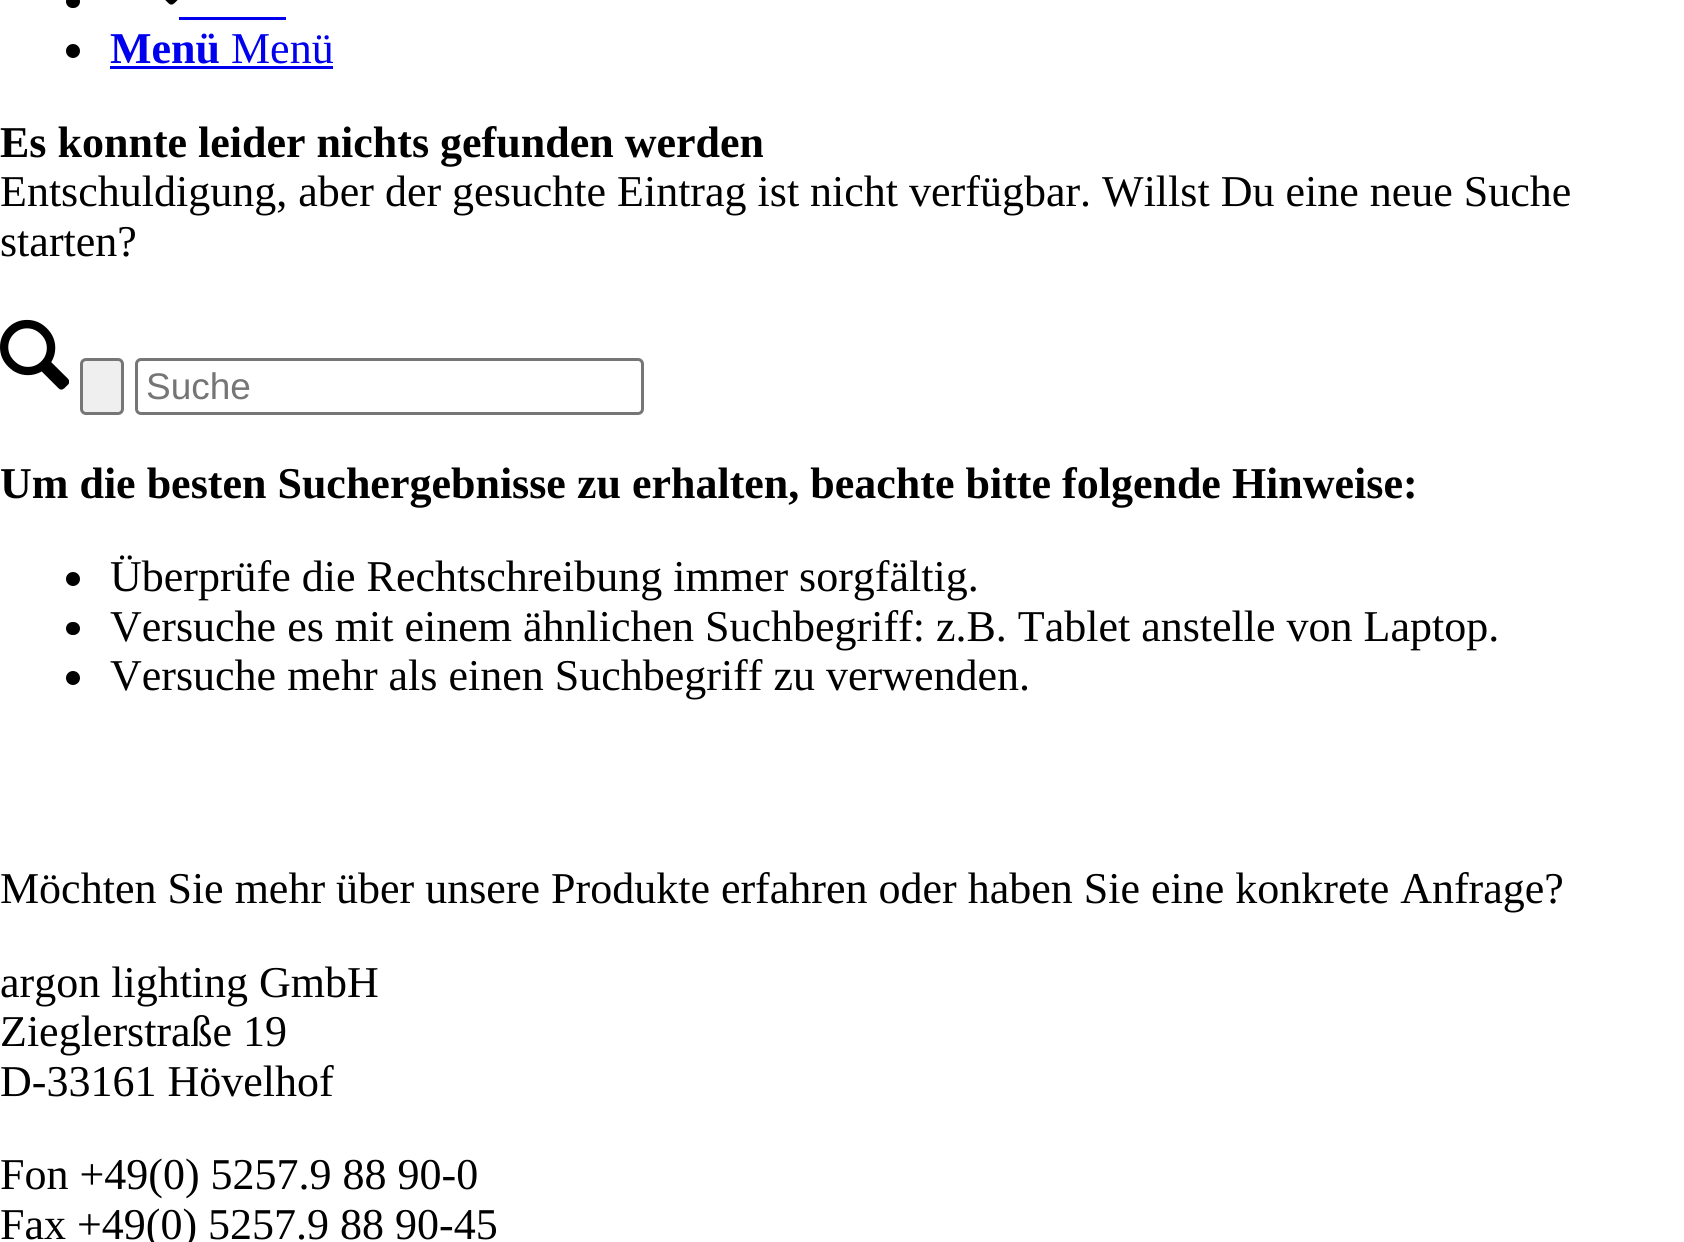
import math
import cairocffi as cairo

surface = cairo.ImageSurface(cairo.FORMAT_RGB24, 1684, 1242)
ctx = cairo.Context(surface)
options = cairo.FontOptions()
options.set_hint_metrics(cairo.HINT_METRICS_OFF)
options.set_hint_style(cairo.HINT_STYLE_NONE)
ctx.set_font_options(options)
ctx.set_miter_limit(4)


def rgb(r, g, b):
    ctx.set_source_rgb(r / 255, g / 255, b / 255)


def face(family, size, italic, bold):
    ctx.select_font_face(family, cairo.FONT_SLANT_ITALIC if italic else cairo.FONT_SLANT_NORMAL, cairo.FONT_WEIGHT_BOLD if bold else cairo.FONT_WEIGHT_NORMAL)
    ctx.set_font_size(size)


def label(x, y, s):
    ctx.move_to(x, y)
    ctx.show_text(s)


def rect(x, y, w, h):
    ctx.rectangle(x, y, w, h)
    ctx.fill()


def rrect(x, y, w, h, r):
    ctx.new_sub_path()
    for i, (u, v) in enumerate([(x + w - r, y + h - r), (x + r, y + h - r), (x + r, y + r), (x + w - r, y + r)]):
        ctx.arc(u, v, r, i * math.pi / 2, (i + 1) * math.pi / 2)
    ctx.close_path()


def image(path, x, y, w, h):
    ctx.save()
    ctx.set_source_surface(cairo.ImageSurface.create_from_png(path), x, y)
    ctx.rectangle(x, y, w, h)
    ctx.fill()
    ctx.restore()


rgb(255, 255, 255)
ctx.paint()
rgb(0, 0, 0)
rrect(66, -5, 14, 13, 6.5)
ctx.fill()
image('image0.png', 165, 0, 13, 5)
rgb(0, 0, 238)
rect(179, 17, 107, 3)
rgb(0, 0, 0)
ctx.arc(73, 51, 7, 0, 2 * math.pi)
ctx.fill()
face('Liberation Serif', 44, 0, 1)
rgb(0, 0, 238)
label(110, 63, 'Menü')
face('Liberation Serif', 44, 0, 0)
label(231, 63, 'Menü')
rect(110, 66, 223, 3)
face('Liberation Serif', 44, 0, 1)
rgb(0, 0, 0)
label(0, 157, 'Es konnte leider nichts gefunden werden')
face('Liberation Serif', 44, 0, 0)
label(0, 206, 'Entschuldigung, aber der gesuchte Eintrag ist nicht verfügbar. Willst Du eine neue Suche')
label(0, 256, 'starten?')
image('image1.png', 0, 319, 69, 71)
rgb(239, 239, 239)
rrect(81.5, 359.5, 41, 54, 4.5)
ctx.fill_preserve()
rgb(118, 118, 118)
ctx.set_line_width(3)
ctx.stroke()
rrect(136.5, 359.5, 506, 54, 4.5)
ctx.stroke()
face('Liberation Sans', 37, 0, 0)
rgb(117, 117, 117)
label(146, 399, 'Suche')
face('Liberation Serif', 44, 0, 1)
rgb(0, 0, 0)
label(0, 498, 'Um die besten Suchergebnisse zu erhalten, beachte bitte folgende Hinweise:')
ctx.new_path()
ctx.arc(73, 579, 7, 0, 2 * math.pi)
ctx.fill()
face('Liberation Serif', 44, 0, 0)
label(110, 591, 'Überprüfe die Rechtschreibung immer sorgfältig.')
rrect(66, 622, 14, 13, 6.5)
ctx.fill()
label(110, 641, 'Versuche es mit einem ähnlichen Suchbegriff: z.B. Tablet anstelle von Laptop.')
ctx.new_path()
ctx.arc(73, 678, 7, 0, 2 * math.pi)
ctx.fill()
label(110, 690, 'Versuche mehr als einen Suchbegriff zu verwenden.')
label(0, 903, 'Möchten Sie mehr über unsere Produkte erfahren oder haben Sie eine konkrete Anfrage?')
label(0, 997, 'argon lighting GmbH')
label(0, 1046, 'Zieglerstraße 19')
label(0, 1096, 'D-33161 Hövelhof')
label(0, 1189, 'Fon +49(0) 5257.9 88 90-0')
label(0, 1239, 'Fax +49(0) 5257.9 88 90-45')
surface.write_to_png('render.png')
